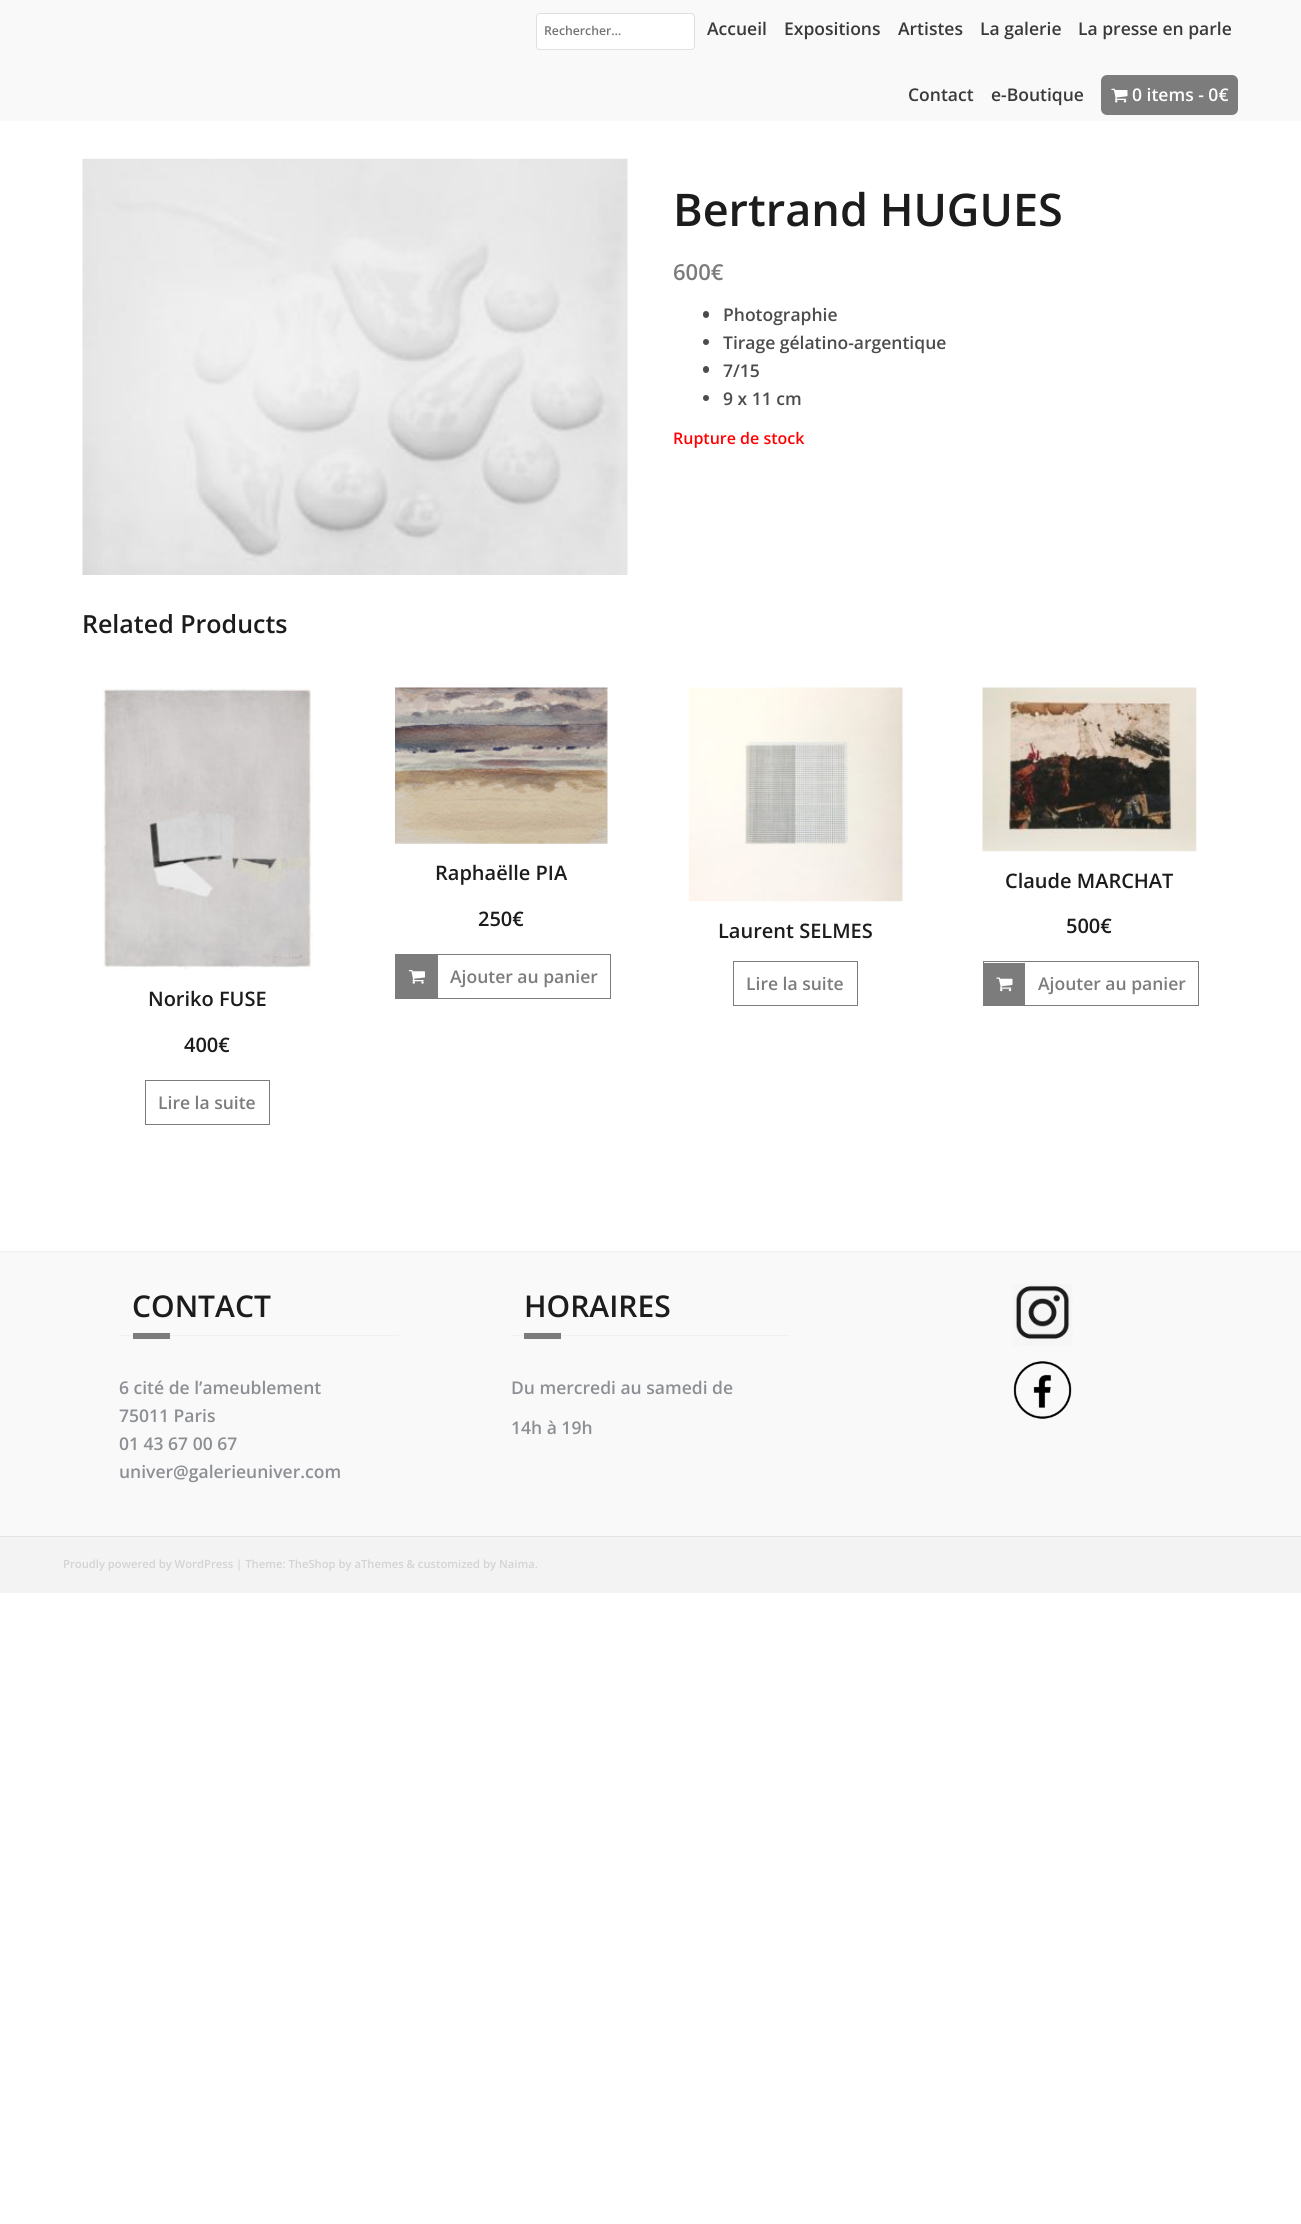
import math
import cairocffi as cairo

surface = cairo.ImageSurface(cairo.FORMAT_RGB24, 1301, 2224)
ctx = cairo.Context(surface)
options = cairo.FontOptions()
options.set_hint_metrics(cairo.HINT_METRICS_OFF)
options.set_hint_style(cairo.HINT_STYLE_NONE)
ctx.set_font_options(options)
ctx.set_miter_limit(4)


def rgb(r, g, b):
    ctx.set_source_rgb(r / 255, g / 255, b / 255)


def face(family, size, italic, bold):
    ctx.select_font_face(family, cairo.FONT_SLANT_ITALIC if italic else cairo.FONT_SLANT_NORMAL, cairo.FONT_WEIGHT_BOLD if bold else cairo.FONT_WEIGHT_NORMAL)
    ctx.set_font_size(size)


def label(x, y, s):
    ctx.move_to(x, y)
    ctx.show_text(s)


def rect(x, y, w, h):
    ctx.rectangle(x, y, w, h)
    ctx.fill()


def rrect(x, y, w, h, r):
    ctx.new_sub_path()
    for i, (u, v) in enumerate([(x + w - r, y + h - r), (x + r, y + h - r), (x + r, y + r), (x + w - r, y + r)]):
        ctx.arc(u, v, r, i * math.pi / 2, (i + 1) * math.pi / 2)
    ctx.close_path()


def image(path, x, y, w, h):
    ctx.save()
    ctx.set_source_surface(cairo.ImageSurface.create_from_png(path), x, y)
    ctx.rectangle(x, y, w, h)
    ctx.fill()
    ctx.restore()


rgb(255, 255, 255)
ctx.paint()
rgb(249, 249, 249)
rect(0, 0, 1301, 121)
rgb(255, 255, 255)
rrect(536.5, 13.5, 158, 36, 3.5)
ctx.fill_preserve()
rgb(224, 224, 224)
ctx.set_line_width(1)
ctx.stroke()
face('Open Sans SemiBold', 12.25, 0, 0)
rgb(117, 117, 117)
label(544, 35, 'Rechercher…')
face('Open Sans SemiBold', 17.5, 0, 0)
rgb(58, 58, 58)
label(707, 35, 'Accueil')
label(784, 35, 'Expositions')
label(898, 35, 'Artistes')
label(980, 35, 'La galerie')
label(1078, 35, 'La presse en parle')
label(908, 101, 'Contact')
label(991, 101, 'e-Boutique')
rgb(124, 124, 124)
rrect(1101, 75, 137, 40, 6)
ctx.fill()
image('image0.png', 1111, 88, 17, 15)
rgb(255, 255, 255)
label(1132, 101, '0 items - 0€')
image('image1.png', 82, 158, 546, 417)
face('Open Sans SemiBold', 45, 0, 0)
rgb(28, 28, 28)
label(673, 226, 'Bertrand HUGUES')
face('Open Sans SemiBold', 22, 0, 0)
rgb(124, 124, 124)
label(673, 280, '600€')
rgb(76, 76, 76)
rrect(703, 311, 6, 7, 3)
ctx.fill()
face('Open Sans SemiBold', 17.5, 0, 0)
label(723, 321, 'Photographie')
ctx.new_path()
ctx.arc(706, 342, 3, 0, 2 * math.pi)
ctx.fill()
label(723, 349, 'Tirage gélatino-argentique')
rrect(703, 366, 6, 7, 3)
ctx.fill()
label(723, 377, '7/15')
ctx.new_path()
ctx.arc(706, 398, 3, 0, 2 * math.pi)
ctx.fill()
label(723, 405, '9 x 11 cm')
face('Open Sans SemiBold', 16, 0, 0)
rgb(255, 0, 0)
label(673, 444, 'Rupture de stock')
face('Open Sans SemiBold', 25, 0, 0)
rgb(28, 28, 28)
label(82, 633, 'Related Products')
image('image2.png', 395, 687, 213, 157)
face('Open Sans SemiBold', 20, 0, 0)
label(435, 880, 'Raphaëlle PIA')
label(478, 926, '250€')
ctx.rectangle(395.5, 954.5, 215, 44)
rgb(124, 124, 124)
ctx.stroke()
rect(396, 955, 42, 43)
face('Open Sans SemiBold', 17.5, 0, 0)
label(450, 983, 'Ajouter au panier')
image('image3.png', 408, 970, 17, 14)
image('image4.png', 688, 687, 215, 215)
face('Open Sans SemiBold', 20, 0, 0)
rgb(28, 28, 28)
label(718, 938, 'Laurent SELMES')
ctx.rectangle(733.5, 961.5, 124, 44)
rgb(124, 124, 124)
ctx.stroke()
face('Open Sans SemiBold', 17.5, 0, 0)
label(746, 990, 'Lire la suite')
image('image5.png', 982, 687, 215, 165)
face('Open Sans SemiBold', 20, 0, 0)
rgb(28, 28, 28)
label(1005, 888, 'Claude MARCHAT')
label(1066, 933, '500€')
ctx.rectangle(983.5, 961.5, 215, 44)
rgb(124, 124, 124)
ctx.stroke()
rect(984, 963, 41, 42)
face('Open Sans SemiBold', 17.5, 0, 0)
label(1038, 990, 'Ajouter au panier')
image('image6.png', 996, 977, 17, 15)
image('image7.png', 102, 687, 211, 283)
face('Open Sans SemiBold', 20, 0, 0)
rgb(28, 28, 28)
label(148, 1006, 'Noriko FUSE')
label(184, 1052, '400€')
ctx.rectangle(145.5, 1080.5, 124, 44)
rgb(124, 124, 124)
ctx.stroke()
face('Open Sans SemiBold', 17.5, 0, 0)
label(158, 1109, 'Lire la suite')
rgb(249, 249, 249)
rect(0, 1252, 1301, 284)
rgb(241, 241, 241)
rect(0, 1251, 1301, 1)
rect(120, 1335, 279, 1)
face('Open Sans SemiBold', 30, 0, 0)
rgb(28, 28, 28)
label(132, 1317, 'CONTACT')
rgb(124, 124, 124)
rect(133, 1333, 37, 6)
face('Open Sans SemiBold', 17.5, 0, 0)
rgb(140, 143, 148)
label(119, 1394, '6 cité de l’ameublement')
label(119, 1422, '75011 Paris')
label(119, 1450, '01 43 67 00 67')
label(119, 1478, 'univer@galerieuniver.com')
rgb(241, 241, 241)
rect(511, 1335, 279, 1)
face('Open Sans SemiBold', 30, 0, 0)
rgb(28, 28, 28)
label(524, 1317, 'HORAIRES')
rgb(124, 124, 124)
rect(524, 1333, 37, 6)
face('Open Sans SemiBold', 17.5, 0, 0)
rgb(140, 143, 148)
label(511, 1394, 'Du mercredi au samedi de')
label(511, 1434, '14h à 19h')
image('image8.png', 1012, 1284, 61, 62)
image('image9.png', 1013, 1361, 59, 58)
rgb(243, 243, 243)
rect(0, 1537, 1301, 56)
rgb(228, 228, 228)
rect(0, 1536, 1301, 1)
face('Open Sans SemiBold', 11.25, 0, 0)
rgb(211, 211, 211)
label(63, 1568, 'Proudly powered by WordPress | Theme: TheShop by aThemes & customized by Naima.')
surface.write_to_png('render.png')
